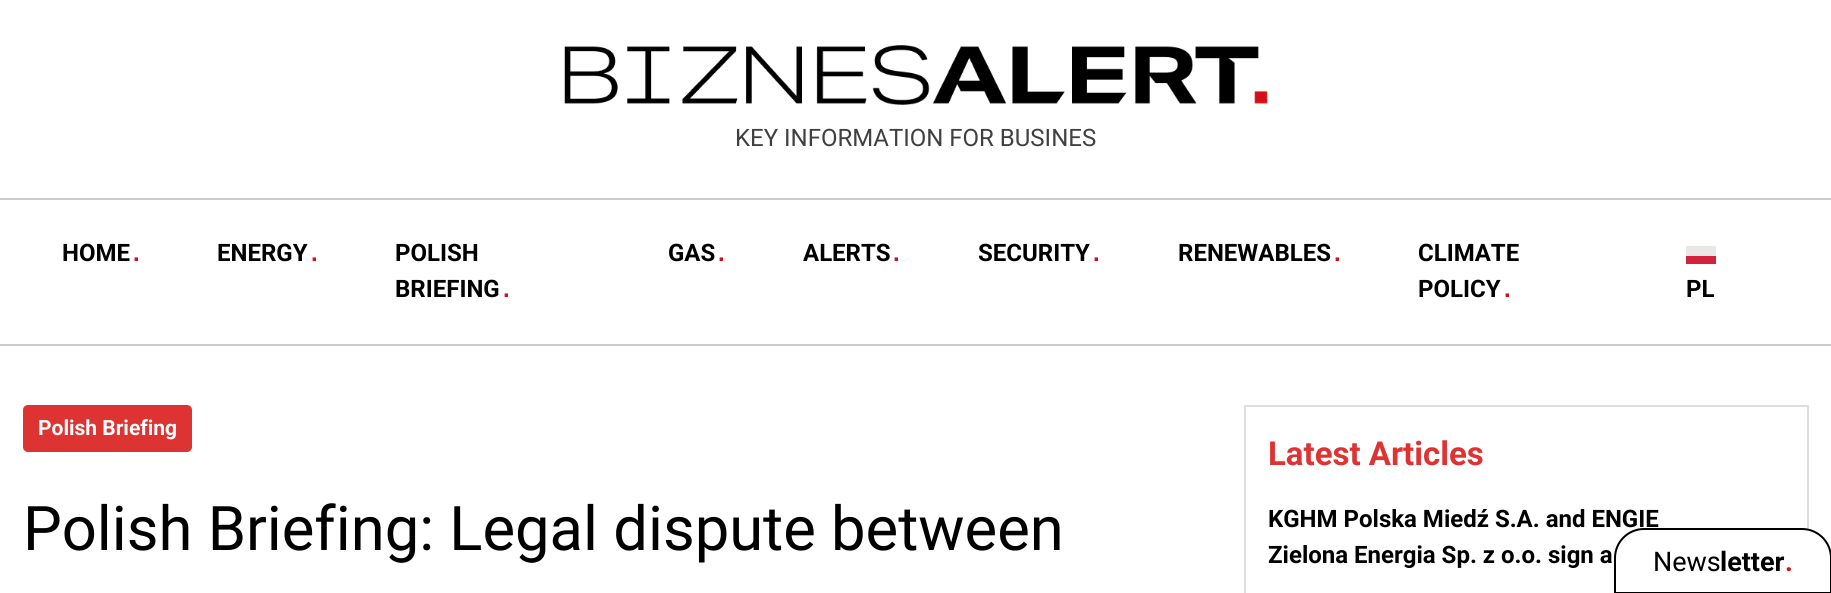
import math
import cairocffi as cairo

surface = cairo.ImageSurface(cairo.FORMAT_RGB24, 1831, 593)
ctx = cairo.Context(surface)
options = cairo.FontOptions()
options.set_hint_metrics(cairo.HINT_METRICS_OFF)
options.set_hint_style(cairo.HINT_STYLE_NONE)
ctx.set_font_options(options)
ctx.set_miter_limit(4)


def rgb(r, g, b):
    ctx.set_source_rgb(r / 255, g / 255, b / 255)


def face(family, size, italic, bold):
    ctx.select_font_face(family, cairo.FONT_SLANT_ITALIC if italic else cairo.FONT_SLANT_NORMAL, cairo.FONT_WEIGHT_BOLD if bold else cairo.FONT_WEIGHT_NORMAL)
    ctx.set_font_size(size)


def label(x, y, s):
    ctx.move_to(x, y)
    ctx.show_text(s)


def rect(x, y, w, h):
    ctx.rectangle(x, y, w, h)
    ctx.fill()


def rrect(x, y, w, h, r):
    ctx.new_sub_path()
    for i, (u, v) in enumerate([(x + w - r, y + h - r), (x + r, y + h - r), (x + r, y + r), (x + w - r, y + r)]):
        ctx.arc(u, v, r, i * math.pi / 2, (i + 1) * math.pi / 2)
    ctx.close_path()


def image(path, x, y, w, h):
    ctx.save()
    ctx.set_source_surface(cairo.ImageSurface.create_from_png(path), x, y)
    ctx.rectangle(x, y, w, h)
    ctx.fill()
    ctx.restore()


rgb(255, 255, 255)
ctx.paint()
image('image0.png', 564, 45, 704, 60)
face('Roboto', 24, 0, 0)
rgb(64, 64, 64)
label(735, 146, 'KEY INFORMATION FOR BUSINES')
rgb(204, 204, 204)
rect(0, 198, 1831, 2)
rect(0, 344, 1831, 2)
face('Roboto', 24, 0, 1)
rgb(0, 0, 0)
label(62, 261, 'HOME')
face('Liberation Sans', 24, 0, 1)
rgb(213, 16, 25)
label(133, 261, '.')
face('Roboto', 24, 0, 1)
rgb(0, 0, 0)
label(217, 261, 'ENERGY')
face('Liberation Sans', 24, 0, 1)
rgb(213, 16, 25)
label(311, 261, '.')
face('Roboto', 24, 0, 1)
rgb(0, 0, 0)
label(395, 261, 'POLISH')
label(395, 297, 'BRIEFING')
face('Liberation Sans', 24, 0, 1)
rgb(213, 16, 25)
label(503, 297, '.')
face('Roboto', 24, 0, 1)
rgb(0, 0, 0)
label(668, 261, 'GAS')
face('Liberation Sans', 24, 0, 1)
rgb(213, 16, 25)
label(718, 261, '.')
face('Roboto', 24, 0, 1)
rgb(0, 0, 0)
label(803, 261, 'ALERTS')
face('Liberation Sans', 24, 0, 1)
rgb(213, 16, 25)
label(893, 261, '.')
face('Roboto', 24, 0, 1)
rgb(0, 0, 0)
label(978, 261, 'SECURITY')
face('Liberation Sans', 24, 0, 1)
rgb(213, 16, 25)
label(1093, 261, '.')
face('Roboto', 24, 0, 1)
rgb(0, 0, 0)
label(1178, 261, 'RENEWABLES')
face('Liberation Sans', 24, 0, 1)
rgb(213, 16, 25)
label(1334, 261, '.')
face('Roboto', 24, 0, 1)
rgb(0, 0, 0)
label(1418, 261, 'CLIMATE')
label(1418, 297, 'POLICY')
face('Liberation Sans', 24, 0, 1)
rgb(213, 16, 25)
label(1504, 297, '.')
face('Roboto', 24, 0, 1)
rgb(0, 0, 0)
label(1686, 297, 'PL')
rgb(233, 232, 231)
rect(1686, 246, 30, 10)
rgb(212, 33, 61)
rect(1686, 256, 30, 8)
rgb(221, 51, 51)
rrect(23, 405, 169, 47, 5)
ctx.fill()
face('Roboto', 21, 0, 1)
rgb(255, 255, 255)
label(38, 435, 'Polish Briefing')
face('Roboto', 61.5, 0, 0)
rgb(0, 0, 0)
label(23, 550, 'Polish Briefing: Legal dispute between')
ctx.rectangle(1245, 406, 563, 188)
rgb(222, 222, 222)
ctx.stroke()
face('Roboto', 33, 0, 1)
rgb(221, 51, 51)
label(1268, 465, 'Latest Articles')
face('Roboto', 24, 0, 1)
rgb(0, 0, 0)
label(1268, 527, 'KGHM Polska Miedź S.A. and ENGIE')
label(1268, 563, 'Zielona Energia Sp. z o.o. sign a')
rgb(255, 255, 255)
ctx.new_path()
ctx.move_to(1644, 529)
ctx.line_to(1802, 529)
ctx.curve_to(1818, 529, 1831, 542, 1831, 558)
ctx.line_to(1831, 593)
ctx.line_to(1615, 593)
ctx.line_to(1615, 558)
ctx.curve_to(1615, 542, 1628, 529, 1644, 529)
ctx.close_path()
ctx.fill_preserve()
rgb(0, 0, 0)
ctx.stroke()
face('Roboto', 27, 0, 0)
label(1653, 571, 'News')
face('Roboto', 27, 0, 1)
label(1720, 571, 'letter')
rgb(213, 16, 25)
label(1785, 571, '.')
surface.write_to_png('render.png')
